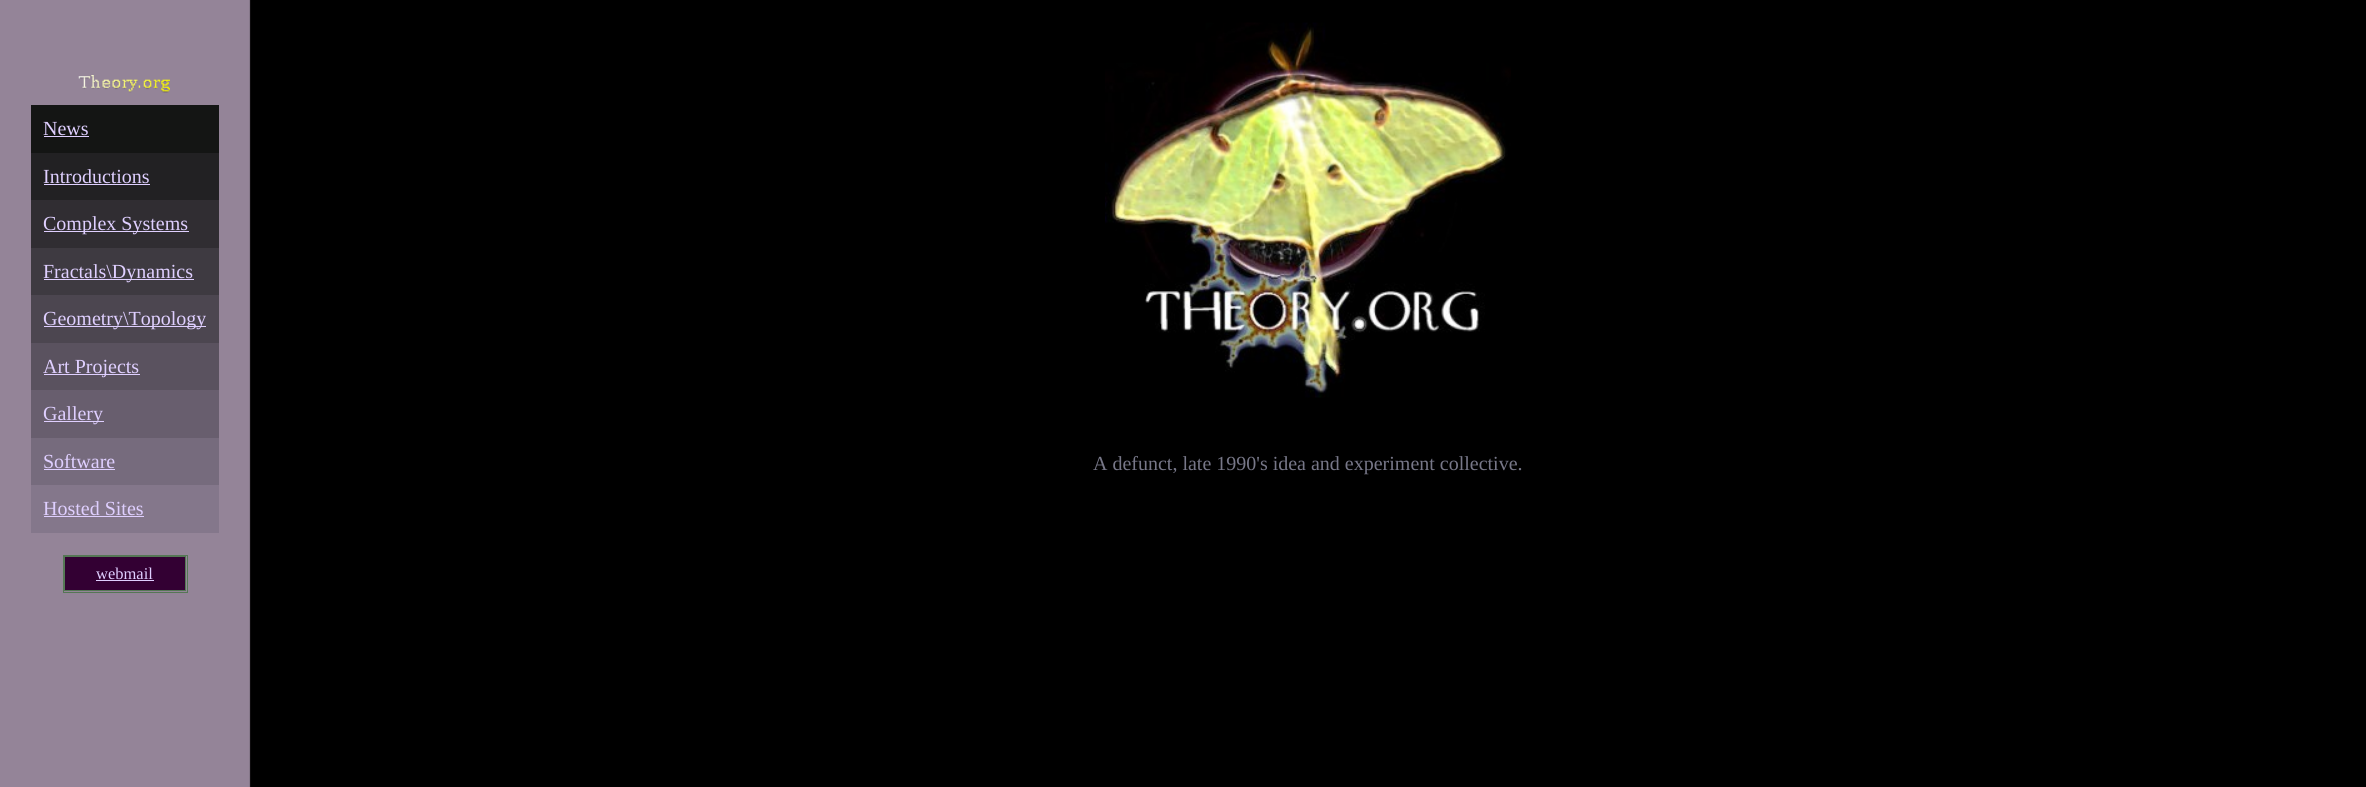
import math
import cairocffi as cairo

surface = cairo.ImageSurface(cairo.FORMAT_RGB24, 2366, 787)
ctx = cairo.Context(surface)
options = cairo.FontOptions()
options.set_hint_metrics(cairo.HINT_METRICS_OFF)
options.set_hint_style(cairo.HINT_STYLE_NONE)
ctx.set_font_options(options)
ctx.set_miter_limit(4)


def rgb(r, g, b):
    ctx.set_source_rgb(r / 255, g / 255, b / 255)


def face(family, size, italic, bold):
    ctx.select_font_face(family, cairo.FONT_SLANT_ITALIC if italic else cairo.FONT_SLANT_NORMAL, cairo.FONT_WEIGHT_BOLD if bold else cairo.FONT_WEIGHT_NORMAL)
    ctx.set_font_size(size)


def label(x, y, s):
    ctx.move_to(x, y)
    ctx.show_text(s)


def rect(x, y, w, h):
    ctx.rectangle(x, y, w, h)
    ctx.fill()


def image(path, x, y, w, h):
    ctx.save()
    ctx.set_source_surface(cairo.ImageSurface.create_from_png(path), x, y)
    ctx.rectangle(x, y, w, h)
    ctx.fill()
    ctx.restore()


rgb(0, 0, 0)
ctx.paint()
image('image0.png', 0, 0, 251, 787)
image('image1.png', 78, 75, 92, 18)
rgb(20, 21, 20)
rect(31, 105, 188, 48)
face('Liberation Serif', 20, 0, 0)
rgb(223, 207, 255)
label(43, 135, 'News')
rect(44, 136, 45, 1)
rgb(34, 33, 35)
rect(31, 153, 188, 47)
rgb(223, 207, 255)
label(43, 183, 'Introductions')
rect(44, 184, 106, 1)
rgb(48, 45, 50)
rect(31, 200, 188, 48)
rgb(223, 207, 255)
rect(44, 231, 145, 1)
label(43, 230, 'Complex Systems')
rgb(62, 58, 65)
rect(31, 248, 188, 47)
rgb(223, 207, 255)
rect(44, 279, 150, 1)
label(43, 278, 'Fractals\\Dynamics')
rgb(76, 70, 80)
rect(31, 295, 188, 48)
rgb(223, 207, 255)
rect(44, 326, 162, 1)
label(43, 325, 'Geometry\\Topology')
rgb(90, 82, 95)
rect(31, 343, 188, 47)
rgb(223, 207, 255)
rect(44, 374, 96, 1)
label(43, 373, 'Art Projects')
rgb(104, 94, 110)
rect(31, 390, 188, 48)
rgb(223, 207, 255)
rect(44, 421, 60, 1)
label(43, 420, 'Gallery')
rgb(118, 107, 125)
rect(31, 438, 188, 47)
rgb(223, 207, 255)
label(43, 468, 'Software')
rect(44, 469, 71, 1)
rgb(132, 119, 139)
rect(31, 485, 188, 48)
rgb(223, 207, 255)
label(43, 515, 'Hosted Sites')
rect(44, 516, 100, 1)
ctx.rectangle(63.5, 555.5, 124, 37)
rgb(85, 119, 85)
ctx.set_line_width(1)
ctx.stroke()
rgb(51, 0, 51)
ctx.rectangle(64.5, 556.5, 121, 34)
ctx.fill_preserve()
rgb(85, 119, 85)
ctx.stroke()
face('Liberation Serif', 16.5, 0, 0)
rgb(223, 207, 255)
label(96, 579, 'webmail')
rect(96, 580, 58, 1)
image('image2.png', 1105, 22, 406, 376)
face('Liberation Serif', 20, 0, 0)
rgb(119, 119, 136)
label(1093, 470, 'A defunct, late 1990\'s idea and experiment collective.')
surface.write_to_png('render.png')
